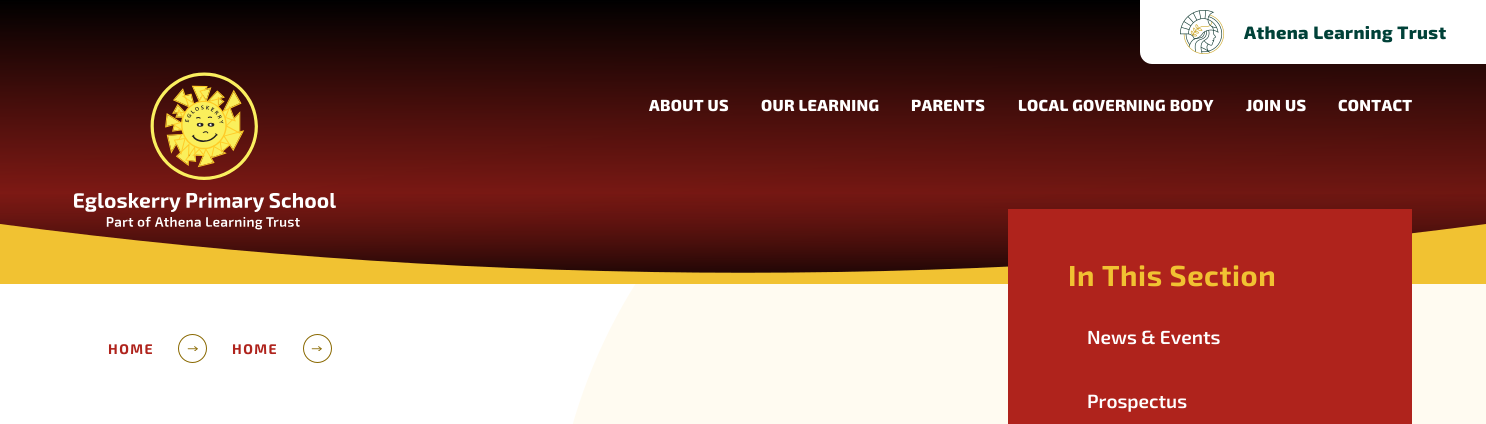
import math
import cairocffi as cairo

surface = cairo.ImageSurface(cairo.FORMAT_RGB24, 1486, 424)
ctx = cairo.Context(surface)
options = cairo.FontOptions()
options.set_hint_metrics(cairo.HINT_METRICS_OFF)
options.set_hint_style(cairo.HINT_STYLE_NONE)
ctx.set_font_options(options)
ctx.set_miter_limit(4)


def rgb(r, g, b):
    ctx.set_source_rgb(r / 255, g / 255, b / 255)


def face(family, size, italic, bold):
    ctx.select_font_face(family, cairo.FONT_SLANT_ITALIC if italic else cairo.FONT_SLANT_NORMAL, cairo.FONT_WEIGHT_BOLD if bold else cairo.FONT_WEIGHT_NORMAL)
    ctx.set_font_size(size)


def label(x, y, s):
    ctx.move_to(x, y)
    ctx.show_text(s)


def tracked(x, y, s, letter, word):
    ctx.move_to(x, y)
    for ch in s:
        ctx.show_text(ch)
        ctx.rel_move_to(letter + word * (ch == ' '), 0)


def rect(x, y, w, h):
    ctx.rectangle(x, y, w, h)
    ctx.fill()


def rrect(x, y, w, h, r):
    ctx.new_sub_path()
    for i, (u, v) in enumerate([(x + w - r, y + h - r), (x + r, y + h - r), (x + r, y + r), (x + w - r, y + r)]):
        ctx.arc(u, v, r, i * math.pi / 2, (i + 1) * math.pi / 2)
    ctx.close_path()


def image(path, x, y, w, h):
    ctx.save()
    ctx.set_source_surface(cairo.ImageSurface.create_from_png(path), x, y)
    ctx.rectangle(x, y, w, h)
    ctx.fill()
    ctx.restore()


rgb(255, 255, 255)
ctx.paint()
rgb(255, 251, 241)
rrect(551, 25, 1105, 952, 552.5)
ctx.fill()
gradient = cairo.LinearGradient(696, -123, 790, 407)
gradient.add_color_stop_rgba(0, 0.773, 0.153, 0.125, 1)
gradient.add_color_stop_rgba(1, 0.6, 0.122, 0.094, 1)
ctx.set_source(gradient)
rect(0, 2, 1486, 271)
gradient = cairo.LinearGradient(743, 280, 743, 0)
gradient.add_color_stop_rgba(0, 0, 0, 0, 0)
gradient.add_color_stop_rgba(1, 0, 0, 0, 1)
ctx.set_source(gradient)
rect(0, 0, 1486, 273)
gradient = cairo.LinearGradient(743, 192, 743, 284)
gradient.add_color_stop_rgba(0, 0, 0, 0, 0)
gradient.add_color_stop_rgba(1, 0, 0, 0, 0.9)
ctx.set_source(gradient)
rect(0, 194, 1486, 79)
rgb(241, 194, 50)
ctx.new_path()
ctx.move_to(1486, 284)
ctx.line_to(1486, 224)
ctx.curve_to(994, 289, 492, 289, 0, 224)
ctx.line_to(0, 284)
ctx.close_path()
ctx.fill()
image('image0.png', 74, 72, 262, 158)
rgb(255, 255, 255)
ctx.new_path()
ctx.move_to(1140, 0)
ctx.line_to(1486, 0)
ctx.line_to(1486, 64)
ctx.line_to(1152, 64)
ctx.curve_to(1145.5, 64, 1140, 58.5, 1140, 52)
ctx.close_path()
ctx.fill()
image('image1.png', 1180, 10, 44, 44)
face('Exo 2 ExtraBold', 18, 0, 0)
rgb(0, 65, 56)
tracked(1244, 39, 'Athena Learning Trust', 0.4, 0)
face('Exo 2 ExtraBold', 16, 0, 0)
rgb(255, 255, 255)
tracked(649, 111, 'ABOUT US', 0.3, 0)
tracked(761, 111, 'OUR LEARNING', 0.3, 0)
tracked(911, 111, 'PARENTS', 0.3, 0)
tracked(1018, 111, 'LOCAL GOVERNING BODY', 0.3, 0)
tracked(1246, 111, 'JOIN US', 0.3, 0)
tracked(1338, 111, 'CONTACT', 0.3, 0)
face('Exo 2', 14, 0, 1)
rgb(175, 35, 28)
tracked(108, 354, 'HOME', 1.5, 0)
ctx.new_path()
ctx.arc(192.5, 348.5, 14, 0, 2 * math.pi)
rgb(137, 104, 0)
ctx.set_line_width(1)
ctx.stroke()
image('image2.png', 187, 346, 11, 5)
rgb(175, 35, 28)
tracked(232, 354, 'HOME', 1.5, 0)
ctx.new_path()
ctx.arc(317.5, 348.5, 14, 0, 2 * math.pi)
rgb(137, 104, 0)
ctx.stroke()
image('image2.png', 311, 346, 11, 5)
rgb(175, 35, 28)
rect(1008, 209, 404, 215)
face('Exo 2', 29, 0, 1)
rgb(241, 194, 50)
tracked(1068, 286, 'In This Section', 0.6, 0)
face('Exo 2 SemiBold', 19, 0, 0)
rgb(255, 255, 255)
label(1087, 344, 'News & Events')
label(1087, 408, 'Prospectus')
surface.write_to_png('render.png')
